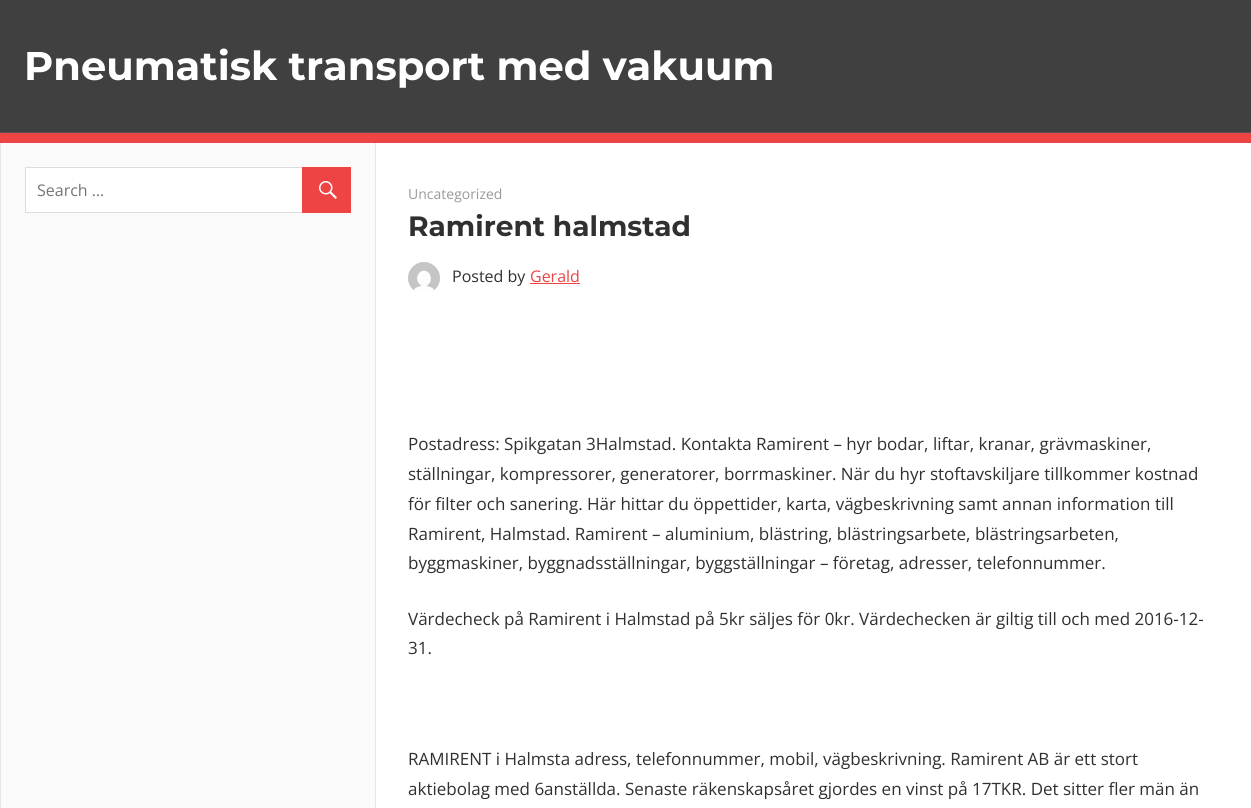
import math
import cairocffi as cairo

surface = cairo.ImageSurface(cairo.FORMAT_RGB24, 1251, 808)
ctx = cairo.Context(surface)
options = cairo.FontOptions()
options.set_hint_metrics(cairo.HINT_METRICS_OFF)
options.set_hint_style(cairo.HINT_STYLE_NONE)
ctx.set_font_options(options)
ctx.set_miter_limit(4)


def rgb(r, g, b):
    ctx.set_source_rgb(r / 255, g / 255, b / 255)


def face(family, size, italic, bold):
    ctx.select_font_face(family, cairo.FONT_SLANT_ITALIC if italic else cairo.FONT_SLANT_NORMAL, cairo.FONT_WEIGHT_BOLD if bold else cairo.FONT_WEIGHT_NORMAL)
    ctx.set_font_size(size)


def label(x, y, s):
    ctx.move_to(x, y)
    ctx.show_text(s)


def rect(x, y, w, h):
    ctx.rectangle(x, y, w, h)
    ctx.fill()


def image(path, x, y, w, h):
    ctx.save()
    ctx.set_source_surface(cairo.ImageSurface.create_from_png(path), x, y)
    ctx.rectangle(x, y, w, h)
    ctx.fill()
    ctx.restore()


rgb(64, 64, 64)
ctx.paint()
rgb(238, 68, 68)
rect(0, 133, 1251, 10)
face('Montserrat', 40, 0, 1)
rgb(255, 255, 255)
label(24, 80, 'Pneumatisk transport med vakuum')
rgb(83, 83, 83)
rect(0, 132, 1251, 1)
rgb(250, 250, 250)
rect(1, 143, 374, 665)
rgb(229, 229, 229)
rect(0, 143, 1, 665)
rgb(255, 255, 255)
rect(26, 168, 276, 44)
ctx.rectangle(25.5, 167.5, 325, 45)
rgb(221, 221, 221)
ctx.set_line_width(1)
ctx.stroke()
face('Open Sans', 16, 0, 0)
rgb(117, 117, 117)
label(37, 196, 'Search …')
rgb(238, 68, 68)
rect(302, 167, 49, 46)
image('image0.png', 319, 181, 18, 18)
rgb(255, 255, 255)
rect(376, 143, 875, 665)
rgb(229, 229, 229)
rect(375, 143, 1, 665)
face('Open Sans', 14, 0, 0)
rgb(153, 153, 153)
label(408, 199, 'Uncategorized')
face('Montserrat', 28, 0, 1)
rgb(48, 48, 48)
label(408, 236, 'Ramirent halmstad')
image('image1.png', 408, 262, 32, 30)
face('Open Sans', 16, 0, 0)
label(452, 282, 'Posted by')
rgb(238, 68, 68)
label(530, 282, 'Gerald')
rect(530, 283, 50, 1)
face('Open Sans', 17, 0, 0)
rgb(48, 48, 48)
label(408, 450, 'Postadress: Spikgatan 3Halmstad. Kontakta Ramirent – hyr bodar, liftar, kranar, grävmaskiner,')
label(408, 480, 'ställningar, kompressorer, generatorer, borrmaskiner. När du hyr stoftavskiljare tillkommer kostnad')
label(408, 510, 'för filter och sanering. Här hittar du öppettider, karta, vägbeskrivning samt annan information till')
label(408, 540, 'Ramirent, Halmstad. Ramirent – aluminium, blästring, blästringsarbete, blästringsarbeten,')
label(408, 569, 'byggmaskiner, byggnadsställningar, byggställningar – företag, adresser, telefonnummer.')
label(408, 625, 'Värdecheck på Ramirent i Halmstad på 5kr säljes för 0kr. Värdechecken är giltig till och med 2016-12-')
label(408, 654, '31.')
label(408, 765, 'RAMIRENT i Halmsta adress, telefonnummer, mobil, vägbeskrivning. Ramirent AB är ett stort')
label(408, 795, 'aktiebolag med 6anställda. Senaste räkenskapsåret gjordes en vinst på 17TKR. Det sitter fler män än')
surface.write_to_png('render.png')
